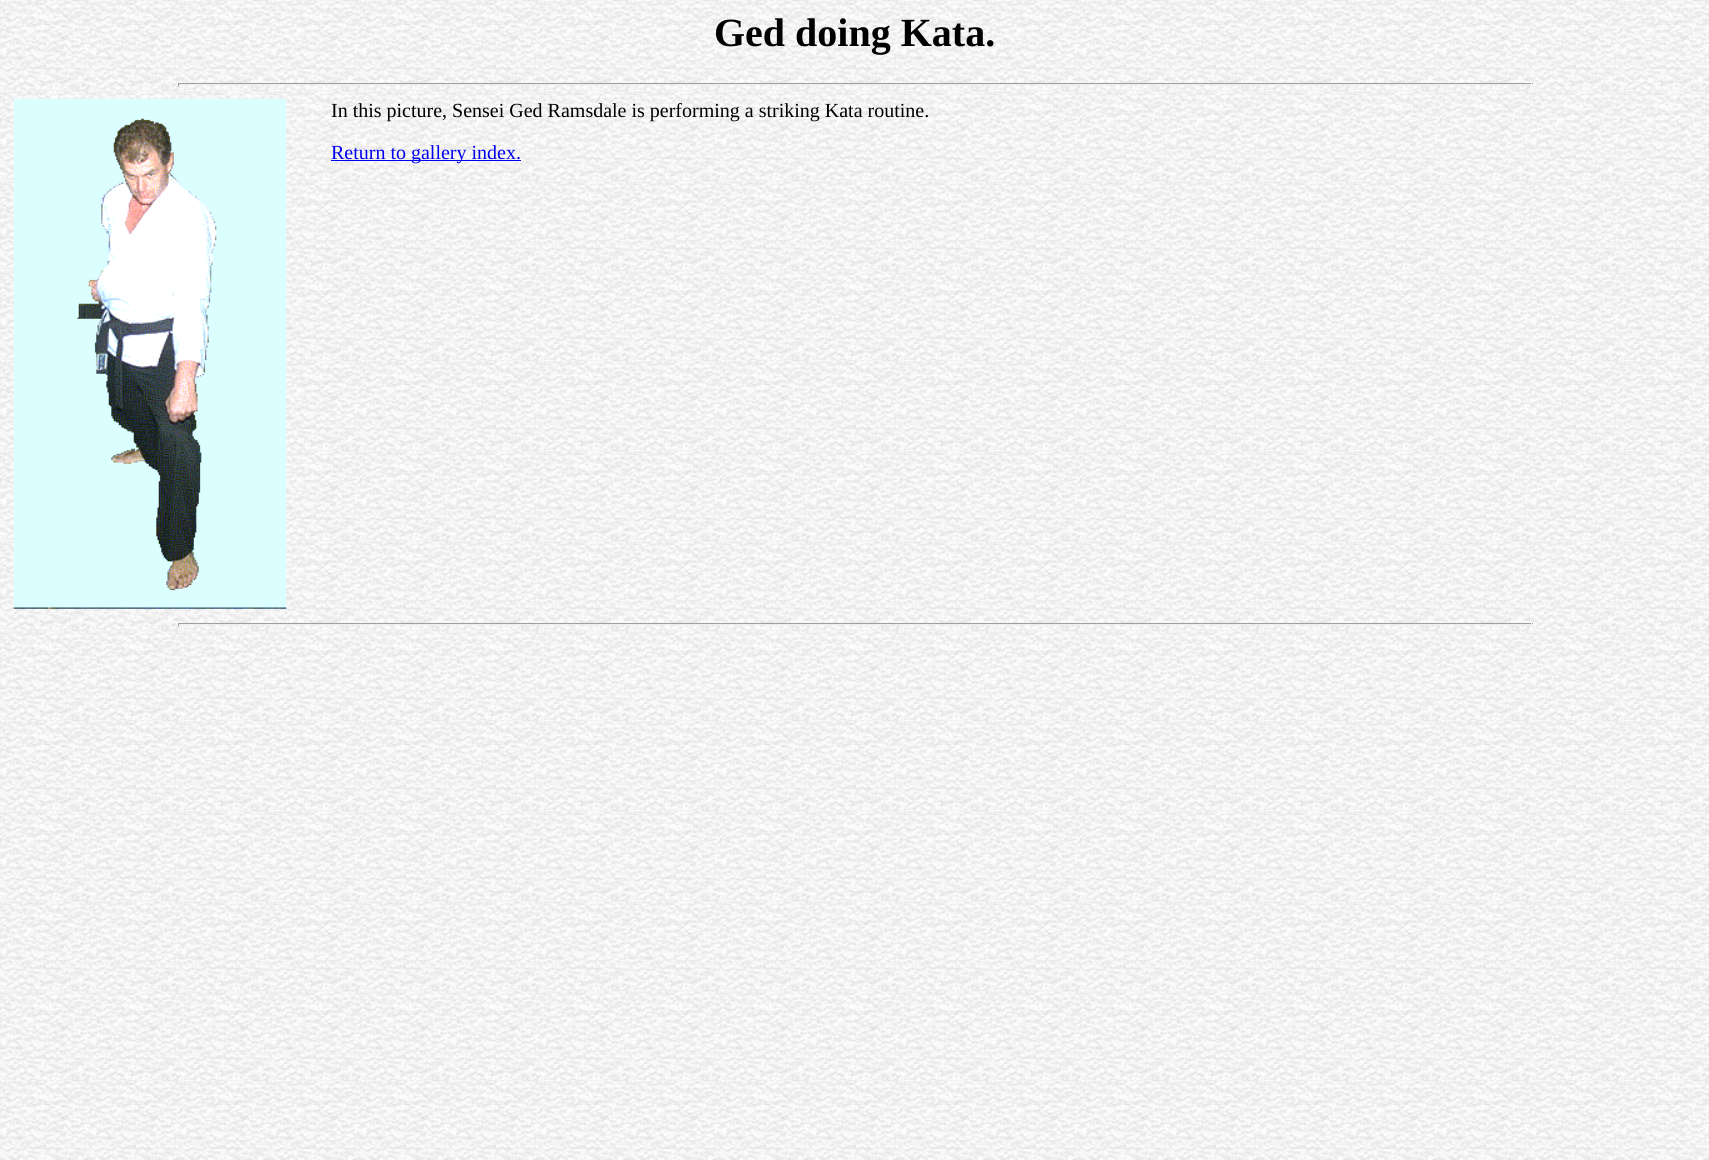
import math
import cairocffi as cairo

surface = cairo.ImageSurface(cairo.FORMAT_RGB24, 1709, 1160)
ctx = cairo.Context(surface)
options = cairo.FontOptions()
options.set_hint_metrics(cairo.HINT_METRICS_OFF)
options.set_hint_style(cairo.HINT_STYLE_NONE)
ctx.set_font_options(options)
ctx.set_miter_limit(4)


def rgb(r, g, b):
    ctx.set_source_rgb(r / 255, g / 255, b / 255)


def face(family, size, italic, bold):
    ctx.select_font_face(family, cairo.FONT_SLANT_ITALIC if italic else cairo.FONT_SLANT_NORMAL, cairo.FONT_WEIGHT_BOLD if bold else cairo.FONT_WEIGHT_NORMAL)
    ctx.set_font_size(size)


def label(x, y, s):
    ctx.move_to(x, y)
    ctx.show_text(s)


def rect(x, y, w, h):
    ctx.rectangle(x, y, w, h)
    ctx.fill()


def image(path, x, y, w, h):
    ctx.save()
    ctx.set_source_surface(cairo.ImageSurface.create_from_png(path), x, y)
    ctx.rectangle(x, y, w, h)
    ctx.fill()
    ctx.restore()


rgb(255, 255, 255)
ctx.paint()
image('image0.png', 0, 0, 1709, 1160)
face('Liberation Serif', 40, 0, 1)
rgb(0, 0, 0)
label(714, 46, 'Ged doing Kata.')
rgb(159, 159, 159)
rect(178, 83, 1355, 1)
rgb(238, 238, 238)
rect(1531, 83, 1, 3)
rect(178, 84, 1355, 1)
rgb(159, 159, 159)
rect(178, 83, 1, 3)
image('image1.png', 13, 98, 274, 511)
face('Liberation Serif', 20, 0, 0)
rgb(0, 0, 0)
label(331, 117, 'In this picture, Sensei Ged Ramsdale is performing a striking Kata routine.')
rgb(0, 0, 238)
rect(331, 160, 190, 1)
label(331, 159, 'Return to gallery index.')
rgb(159, 159, 159)
rect(178, 623, 1355, 1)
rgb(238, 238, 238)
rect(1531, 623, 1, 3)
rect(178, 624, 1355, 1)
rgb(159, 159, 159)
rect(178, 623, 1, 3)
surface.write_to_png('render.png')
